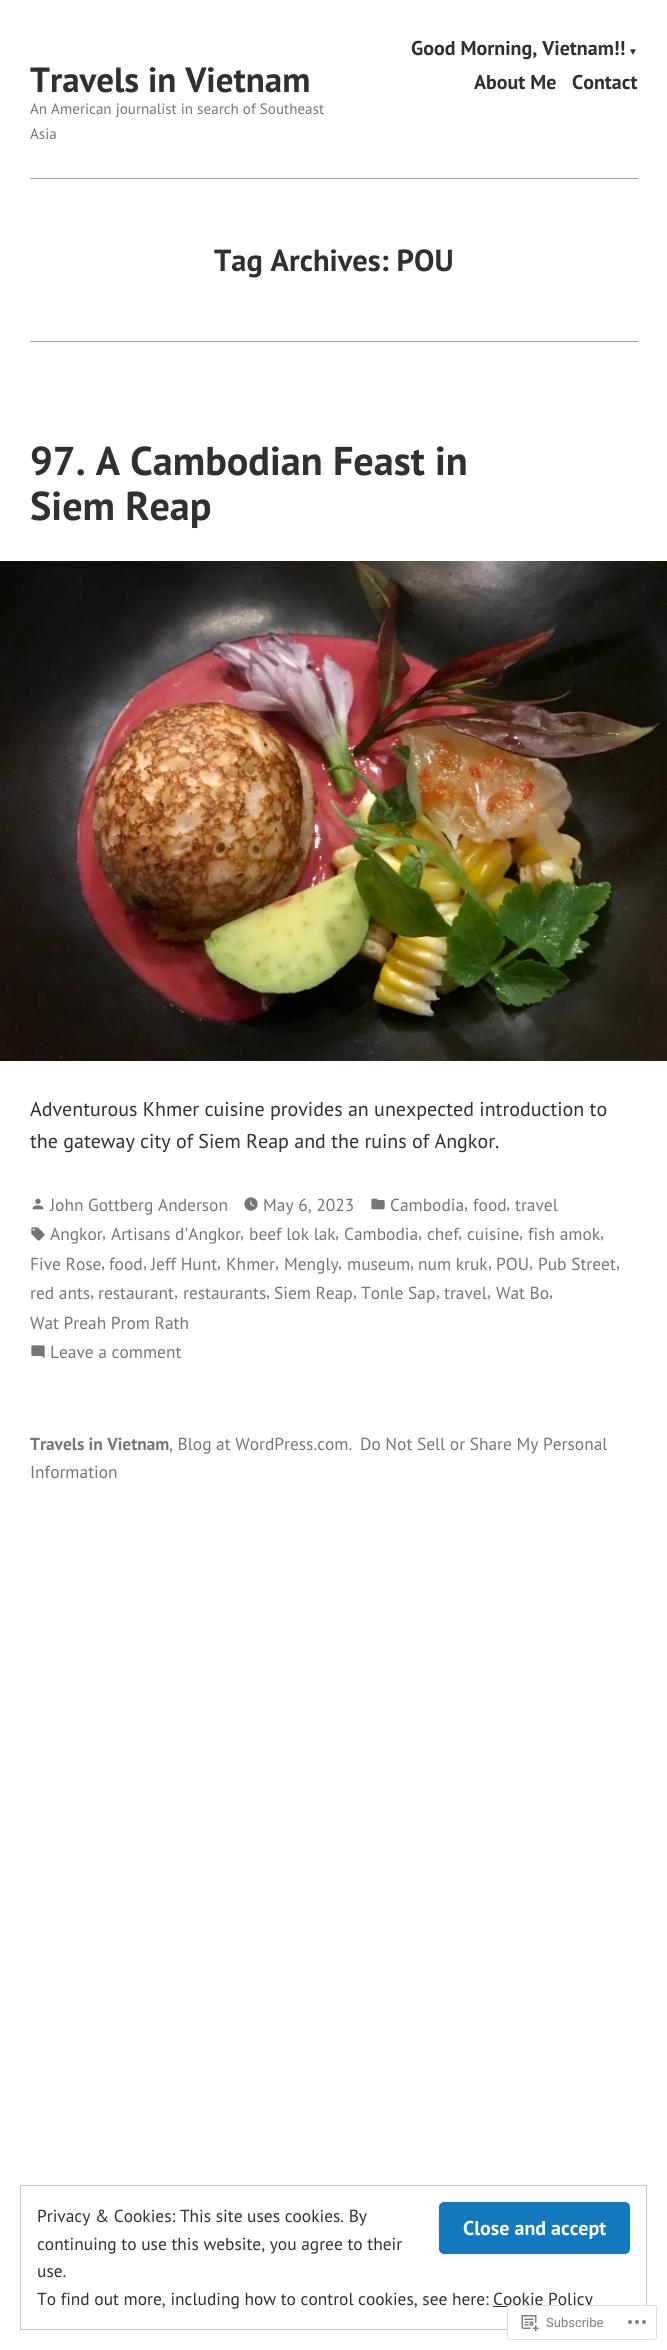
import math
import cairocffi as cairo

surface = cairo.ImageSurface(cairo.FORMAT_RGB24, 667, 2350)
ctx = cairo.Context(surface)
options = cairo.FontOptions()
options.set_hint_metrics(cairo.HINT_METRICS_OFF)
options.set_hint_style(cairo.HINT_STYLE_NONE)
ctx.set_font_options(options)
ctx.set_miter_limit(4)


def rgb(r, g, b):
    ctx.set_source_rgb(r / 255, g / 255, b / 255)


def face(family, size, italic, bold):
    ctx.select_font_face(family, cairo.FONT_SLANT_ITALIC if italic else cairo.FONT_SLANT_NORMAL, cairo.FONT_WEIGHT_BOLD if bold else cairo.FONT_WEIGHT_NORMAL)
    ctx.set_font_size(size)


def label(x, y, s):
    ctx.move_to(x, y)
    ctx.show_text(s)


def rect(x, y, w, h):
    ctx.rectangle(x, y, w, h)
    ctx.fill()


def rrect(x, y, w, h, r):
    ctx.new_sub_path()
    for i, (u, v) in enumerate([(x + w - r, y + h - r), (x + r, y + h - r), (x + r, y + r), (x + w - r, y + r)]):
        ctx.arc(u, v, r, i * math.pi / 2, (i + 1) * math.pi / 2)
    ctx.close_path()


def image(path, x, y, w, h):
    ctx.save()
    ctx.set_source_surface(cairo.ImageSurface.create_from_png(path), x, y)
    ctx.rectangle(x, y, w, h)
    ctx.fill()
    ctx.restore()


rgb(255, 255, 255)
ctx.paint()
face('PT Sans', 35, 0, 1)
rgb(48, 48, 48)
label(30, 92, 'Travels in Vietnam')
face('PT Sans', 20, 0, 1)
label(411, 55, 'Good Morning, Vietnam!!')
face('Liberation Sans', 10, 0, 1)
label(628, 55, '▼')
face('PT Sans', 20, 0, 1)
label(474, 89, 'About Me')
label(572, 89, 'Contact')
face('PT Sans', 15.1, 0, 0)
rgb(117, 117, 117)
label(30, 114, 'An American journalist in search of Southeast')
label(30, 139, 'Asia')
rgb(165, 165, 165)
rect(30, 178, 608, 1)
face('PT Sans', 30.5, 0, 1)
rgb(48, 48, 48)
label(214, 271, 'Tag Archives: POU')
rgb(165, 165, 165)
rect(30, 341, 608, 1)
face('PT Sans', 40.25, 0, 1)
rgb(48, 48, 48)
label(30, 475, '97. A Cambodian Feast in')
label(30, 520, 'Siem Reap')
image('image0.png', 0, 561, 667, 500)
face('PT Sans', 20, 0, 0)
label(30, 1116, 'Adventurous Khmer cuisine provides an unexpected introduction to')
label(30, 1148, 'the gateway city of Siem Reap and the ruins of Angkor.')
image('image1.png', 32, 1198, 12, 12)
face('PT Sans', 17.4, 0, 0)
rgb(117, 117, 117)
label(50, 1211, 'John Gottberg Anderson')
image('image2.png', 244, 1197, 14, 14)
label(263, 1211, 'May 6, 2023')
image('image3.png', 371, 1198, 14, 12)
label(390, 1211, 'Cambodia')
label(464, 1209, ',')
label(473, 1211, 'food')
label(506, 1209, ',')
label(515, 1211, 'travel')
image('image4.png', 31, 1227, 14, 14)
label(50, 1240, 'Angkor')
label(102, 1238, ',')
label(111, 1240, 'Artisans d\'Angkor')
label(240, 1238, ',')
label(249, 1240, 'beef lok lak')
label(335, 1238, ',')
label(344, 1240, 'Cambodia')
label(418, 1238, ',')
label(427, 1240, 'chef')
label(458, 1238, ',')
label(467, 1240, 'cuisine')
label(519, 1238, ',')
label(528, 1240, 'fish amok')
label(600, 1238, ',')
label(30, 1270, 'Five Rose')
label(101, 1268, ',')
label(109, 1270, 'food')
label(143, 1268, ',')
label(151, 1270, 'Jeff Hunt')
label(217, 1268, ',')
label(226, 1270, 'Khmer')
label(275, 1268, ',')
label(284, 1270, 'Mengly')
label(338, 1268, ',')
label(347, 1270, 'museum')
label(410, 1268, ',')
label(418, 1270, 'num kruk')
label(488, 1268, ',')
label(496, 1270, 'POU')
label(529, 1268, ',')
label(538, 1270, 'Pub Street')
label(616, 1268, ',')
label(30, 1299, 'red ants')
label(90, 1297, ',')
label(98, 1299, 'restaurant')
label(174, 1297, ',')
label(183, 1299, 'restaurants')
label(266, 1297, ',')
label(274, 1299, 'Siem Reap')
label(353, 1297, ',')
label(361, 1299, 'Tonle Sap')
label(436, 1297, ',')
label(444, 1299, 'travel')
label(487, 1297, ',')
label(496, 1299, 'Wat Bo')
label(549, 1297, ',')
label(30, 1329, 'Wat Preah Prom Rath')
image('image5.png', 31, 1345, 14, 14)
label(50, 1358, 'Leave a comment')
ctx.save()
ctx.rectangle(30, 1398, 608, 120)
ctx.clip()
face('PT Sans', 17.4, 0, 1)
label(30, 1450, 'Travels in Vietnam')
ctx.restore()
label(169, 1450, ', Blog at WordPress.com.')
label(360, 1450, 'Do Not Sell or Share My Personal')
label(30, 1478, 'Information')
ctx.rectangle(20.5, 2185.5, 626, 144)
rgb(197, 197, 197)
ctx.set_line_width(1)
ctx.stroke()
rgb(48, 48, 48)
label(37, 2222, 'Privacy & Cookies: This site uses cookies. By')
rgb(18, 121, 190)
rrect(439, 2202, 191, 52, 5)
ctx.fill()
face('PT Sans', 20, 0, 1)
rgb(255, 255, 255)
label(463, 2235, 'Close and accept')
face('PT Sans', 17.4, 0, 0)
rgb(48, 48, 48)
label(37, 2250, 'continuing to use this website, you agree to their')
label(37, 2277, 'use.')
label(37, 2305, 'To find out more, including how to control cookies, see here:')
rect(493, 2306, 100, 1)
label(493, 2305, 'Cookie Policy')
ctx.set_source_rgba(1, 1, 1, 0.98)
rrect(507, 2305, 150, 35, 3)
ctx.fill()
rrect(507.5, 2305.5, 149, 34, 2.5)
ctx.set_source_rgba(0.863, 0.863, 0.871, 0.98)
ctx.stroke()
image('image6.png', 521, 2315, 18, 17)
face('Roboto', 13, 0, 0)
rgb(123, 127, 133)
label(546, 2327, 'Subscribe')
image('image7.png', 628, 2320, 18, 4)
surface.write_to_png('render.png')
